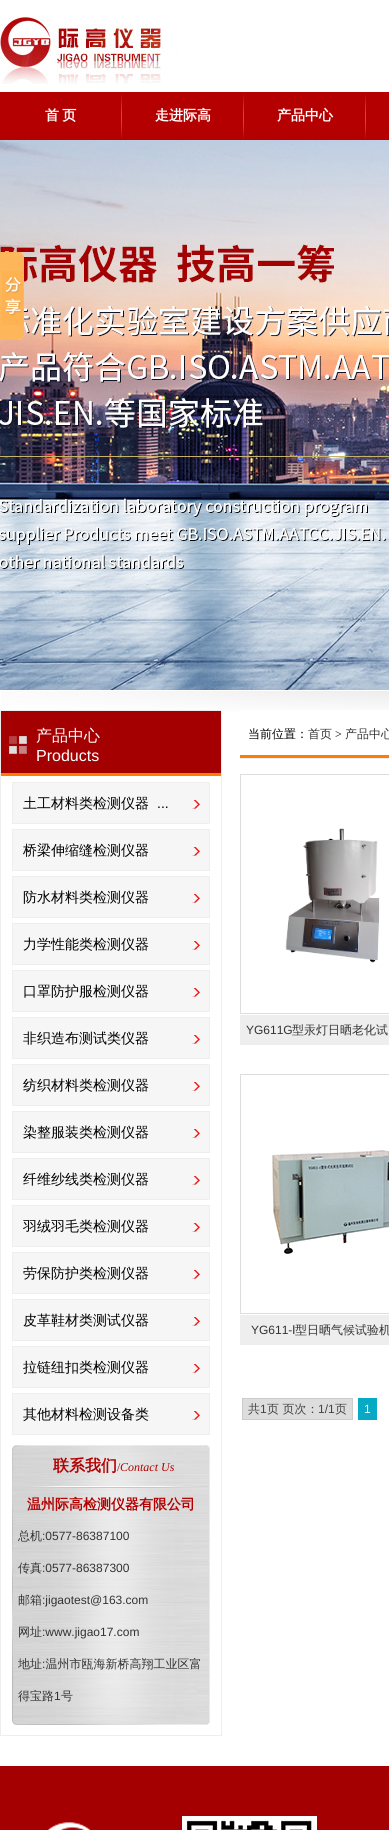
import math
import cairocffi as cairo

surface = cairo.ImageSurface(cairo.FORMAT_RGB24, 389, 1830)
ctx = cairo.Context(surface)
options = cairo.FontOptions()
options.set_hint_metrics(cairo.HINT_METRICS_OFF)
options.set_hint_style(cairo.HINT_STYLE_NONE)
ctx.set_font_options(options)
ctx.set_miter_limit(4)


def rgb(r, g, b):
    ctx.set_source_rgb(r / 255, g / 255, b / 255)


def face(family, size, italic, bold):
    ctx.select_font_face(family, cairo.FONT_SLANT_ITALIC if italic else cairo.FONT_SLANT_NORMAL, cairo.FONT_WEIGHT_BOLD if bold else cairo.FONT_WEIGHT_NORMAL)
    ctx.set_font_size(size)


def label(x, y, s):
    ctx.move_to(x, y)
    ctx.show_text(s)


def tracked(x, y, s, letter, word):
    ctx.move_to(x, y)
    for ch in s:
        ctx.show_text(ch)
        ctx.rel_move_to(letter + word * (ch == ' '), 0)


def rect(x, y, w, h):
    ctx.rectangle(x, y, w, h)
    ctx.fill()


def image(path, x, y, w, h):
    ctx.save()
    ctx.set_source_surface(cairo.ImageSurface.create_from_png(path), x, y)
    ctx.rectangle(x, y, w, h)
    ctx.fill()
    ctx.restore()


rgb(255, 255, 255)
ctx.paint()
image('image3.png', 0, 140, 389, 550)
image('image0.png', 0, 252, 24, 88)
image('image1.png', 0, 16, 177, 68)
rgb(180, 0, 0)
rect(0, 92, 389, 48)
image('image2.png', 121, 94, 1, 45)
face('WenQuanYi Zen Hei', 14, 0, 1)
rgb(255, 255, 255)
tracked(45, 120, '首 页', 0, -1)
image('image2.png', 243, 94, 1, 45)
label(155, 120, '走进际高')
image('image2.png', 365, 94, 1, 45)
label(277, 120, '产品中心')
image('image4.png', 1, 691, 388, 21)
ctx.rectangle(0.5, 710.5, 221, 1025)
rgb(238, 238, 238)
ctx.set_line_width(1)
ctx.stroke()
rgb(164, 0, 1)
rect(1, 711, 220, 62)
image('image5.png', 9, 736, 18, 18)
rgb(254, 124, 4)
rect(1, 773, 220, 3)
face('WenQuanYi Zen Hei Medium', 16, 0, 0)
rgb(255, 255, 255)
label(36, 741, '产品中心')
face('Liberation Sans', 16, 0, 0)
label(36, 761, 'Products')
rgb(246, 246, 246)
ctx.rectangle(12.5, 782.5, 197, 41)
ctx.fill_preserve()
rgb(238, 238, 238)
ctx.stroke()
image('image6.png', 192, 800, 8, 9)
face('WenQuanYi Zen Hei Medium', 14, 0, 0)
rgb(0, 0, 0)
label(23, 808, '土工材料类检测仪器')
face('Liberation Sans', 14, 0, 0)
label(157, 808, '...')
rgb(246, 246, 246)
ctx.rectangle(12.5, 829.5, 197, 41)
ctx.fill_preserve()
rgb(238, 238, 238)
ctx.stroke()
image('image6.png', 192, 847, 8, 9)
face('WenQuanYi Zen Hei Medium', 14, 0, 0)
rgb(0, 0, 0)
label(23, 855, '桥梁伸缩缝检测仪器')
rgb(246, 246, 246)
ctx.rectangle(12.5, 876.5, 197, 41)
ctx.fill_preserve()
rgb(238, 238, 238)
ctx.stroke()
image('image6.png', 192, 894, 8, 9)
rgb(0, 0, 0)
label(23, 902, '防水材料类检测仪器')
rgb(246, 246, 246)
ctx.rectangle(12.5, 923.5, 197, 41)
ctx.fill_preserve()
rgb(238, 238, 238)
ctx.stroke()
image('image6.png', 192, 941, 8, 9)
rgb(0, 0, 0)
label(23, 949, '力学性能类检测仪器')
rgb(246, 246, 246)
ctx.rectangle(12.5, 970.5, 197, 41)
ctx.fill_preserve()
rgb(238, 238, 238)
ctx.stroke()
image('image6.png', 192, 988, 8, 9)
rgb(0, 0, 0)
label(23, 996, '口罩防护服检测仪器')
rgb(246, 246, 246)
ctx.rectangle(12.5, 1017.5, 197, 41)
ctx.fill_preserve()
rgb(238, 238, 238)
ctx.stroke()
image('image6.png', 192, 1035, 8, 9)
rgb(0, 0, 0)
label(23, 1043, '非织造布测试类仪器')
rgb(246, 246, 246)
ctx.rectangle(12.5, 1064.5, 197, 41)
ctx.fill_preserve()
rgb(238, 238, 238)
ctx.stroke()
image('image6.png', 192, 1082, 8, 9)
rgb(0, 0, 0)
label(23, 1090, '纺织材料类检测仪器')
rgb(246, 246, 246)
ctx.rectangle(12.5, 1111.5, 197, 41)
ctx.fill_preserve()
rgb(238, 238, 238)
ctx.stroke()
image('image6.png', 192, 1129, 8, 9)
rgb(0, 0, 0)
label(23, 1137, '染整服装类检测仪器')
rgb(246, 246, 246)
ctx.rectangle(12.5, 1158.5, 197, 41)
ctx.fill_preserve()
rgb(238, 238, 238)
ctx.stroke()
image('image6.png', 192, 1176, 8, 9)
rgb(0, 0, 0)
label(23, 1184, '纤维纱线类检测仪器')
rgb(246, 246, 246)
ctx.rectangle(12.5, 1205.5, 197, 41)
ctx.fill_preserve()
rgb(238, 238, 238)
ctx.stroke()
image('image6.png', 192, 1223, 8, 9)
rgb(0, 0, 0)
label(23, 1231, '羽绒羽毛类检测仪器')
rgb(246, 246, 246)
ctx.rectangle(12.5, 1252.5, 197, 41)
ctx.fill_preserve()
rgb(238, 238, 238)
ctx.stroke()
image('image6.png', 192, 1270, 8, 9)
rgb(0, 0, 0)
label(23, 1278, '劳保防护类检测仪器')
rgb(246, 246, 246)
ctx.rectangle(12.5, 1299.5, 197, 41)
ctx.fill_preserve()
rgb(238, 238, 238)
ctx.stroke()
image('image6.png', 192, 1317, 8, 9)
rgb(0, 0, 0)
label(23, 1325, '皮革鞋材类测试仪器')
rgb(246, 246, 246)
ctx.rectangle(12.5, 1346.5, 197, 41)
ctx.fill_preserve()
rgb(238, 238, 238)
ctx.stroke()
image('image6.png', 192, 1364, 8, 9)
rgb(0, 0, 0)
label(23, 1372, '拉链纽扣类检测仪器')
rgb(246, 246, 246)
ctx.rectangle(12.5, 1393.5, 197, 41)
ctx.fill_preserve()
rgb(238, 238, 238)
ctx.stroke()
image('image6.png', 192, 1411, 8, 9)
rgb(0, 0, 0)
label(23, 1419, '其他材料检测设备类')
image('image7.png', 12, 1445, 198, 280)
face('WenQuanYi Zen Hei', 16, 0, 1)
rgb(180, 0, 0)
label(53, 1471, '联系我们')
face('Liberation Serif', 12, 0, 0)
label(117, 1471, '/')
face('Liberation Serif', 12, 1, 0)
label(120, 1471, 'Contact Us')
face('WenQuanYi Zen Hei', 14, 0, 1)
label(27, 1509, '温州际高检测仪器有限公司')
face('WenQuanYi Zen Hei Medium', 12, 0, 0)
rgb(51, 51, 51)
label(18, 1540, '总机')
face('Liberation Sans', 12, 0, 0)
label(42, 1540, ':0577-86387100')
face('WenQuanYi Zen Hei Medium', 12, 0, 0)
label(18, 1572, '传真')
face('Liberation Sans', 12, 0, 0)
label(42, 1572, ':0577-86387300')
face('WenQuanYi Zen Hei Medium', 12, 0, 0)
label(18, 1604, '邮箱')
face('Liberation Sans', 12, 0, 0)
label(42, 1604, ':jigaotest@163.com')
face('WenQuanYi Zen Hei Medium', 12, 0, 0)
label(18, 1636, '网址')
face('Liberation Sans', 12, 0, 0)
label(42, 1636, ':www.jigao17.com')
face('WenQuanYi Zen Hei Medium', 12, 0, 0)
label(18, 1668, '地址 温州市瓯海新桥高翔工业区富')
face('Liberation Sans', 12, 0, 0)
label(42, 1668, ':')
face('WenQuanYi Zen Hei Medium', 12, 0, 0)
label(18, 1700, '得宝路')
face('Liberation Sans', 12, 0, 0)
label(54, 1700, '1')
face('WenQuanYi Zen Hei Medium', 12, 0, 0)
label(61, 1700, '号')
rgb(255, 255, 255)
rect(240, 710, 149, 2)
rgb(254, 124, 4)
rect(240, 755, 149, 3)
rgb(0, 0, 0)
label(248, 738, '当前位置：')
rgb(51, 51, 51)
label(308, 738, '首页')
face('Liberation Serif', 12, 0, 0)
rgb(0, 0, 0)
label(335, 738, '>')
face('WenQuanYi Zen Hei Medium', 12, 0, 0)
rgb(51, 51, 51)
label(345, 738, '产品中心')
rgb(238, 238, 238)
rect(240, 758, 149, 1)
ctx.rectangle(240.5, 774.5, 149, 239)
rgb(221, 221, 221)
ctx.stroke()
image('image8.png', 285, 828, 95, 135)
rgb(238, 238, 238)
rect(240, 1015, 149, 30)
face('Liberation Sans', 12, 0, 0)
rgb(51, 51, 51)
label(246, 1034, 'YG611G')
face('WenQuanYi Zen Hei Medium', 12, 0, 0)
label(292, 1034, '型汞灯日晒老化试')
ctx.rectangle(240.5, 1074.5, 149, 239)
rgb(221, 221, 221)
ctx.stroke()
image('image9.png', 272, 1150, 117, 104)
rgb(238, 238, 238)
rect(240, 1315, 149, 30)
face('Liberation Sans', 12, 0, 0)
rgb(51, 51, 51)
label(251, 1334, 'YG611-')
face('DejaVu Sans', 12, 0, 0)
label(292, 1334, 'Ⅰ')
face('WenQuanYi Zen Hei Medium', 12, 0, 0)
label(295, 1334, '型日晒气候试验机')
rgb(221, 221, 221)
ctx.rectangle(242.5, 1398.5, 110, 21)
ctx.fill_preserve()
rgb(204, 204, 204)
ctx.stroke()
rgb(68, 68, 68)
label(248, 1413, '共')
face('Liberation Sans', 12, 0, 0)
label(260, 1413, '1')
face('WenQuanYi Zen Hei Medium', 12, 0, 0)
label(267, 1413, '页 页次：')
face('Liberation Sans', 12, 0, 0)
label(318, 1413, '1/1')
face('WenQuanYi Zen Hei Medium', 12, 0, 0)
label(335, 1413, '页')
rgb(8, 169, 196)
rect(358, 1398, 19, 22)
face('Liberation Sans', 12, 0, 0)
rgb(255, 255, 255)
label(364, 1413, '1')
rgb(164, 0, 1)
rect(0, 1766, 389, 64)
image('image10.png', 47, 1822, 44, 8)
image('image11.png', 182, 1816, 135, 14)
surface.write_to_png('render.png')
